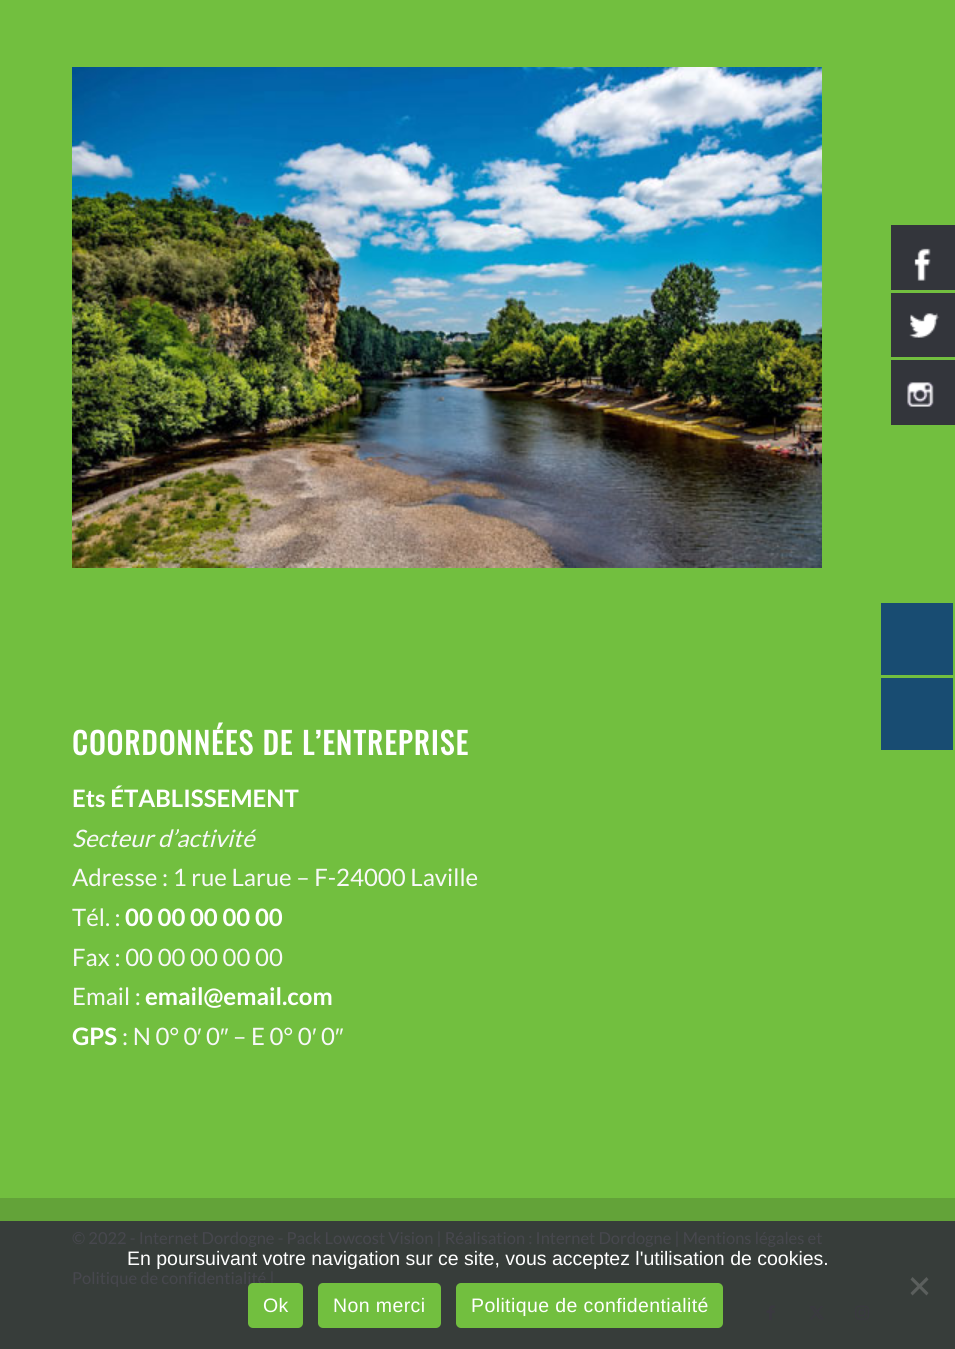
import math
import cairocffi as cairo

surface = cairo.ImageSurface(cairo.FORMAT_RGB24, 955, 1349)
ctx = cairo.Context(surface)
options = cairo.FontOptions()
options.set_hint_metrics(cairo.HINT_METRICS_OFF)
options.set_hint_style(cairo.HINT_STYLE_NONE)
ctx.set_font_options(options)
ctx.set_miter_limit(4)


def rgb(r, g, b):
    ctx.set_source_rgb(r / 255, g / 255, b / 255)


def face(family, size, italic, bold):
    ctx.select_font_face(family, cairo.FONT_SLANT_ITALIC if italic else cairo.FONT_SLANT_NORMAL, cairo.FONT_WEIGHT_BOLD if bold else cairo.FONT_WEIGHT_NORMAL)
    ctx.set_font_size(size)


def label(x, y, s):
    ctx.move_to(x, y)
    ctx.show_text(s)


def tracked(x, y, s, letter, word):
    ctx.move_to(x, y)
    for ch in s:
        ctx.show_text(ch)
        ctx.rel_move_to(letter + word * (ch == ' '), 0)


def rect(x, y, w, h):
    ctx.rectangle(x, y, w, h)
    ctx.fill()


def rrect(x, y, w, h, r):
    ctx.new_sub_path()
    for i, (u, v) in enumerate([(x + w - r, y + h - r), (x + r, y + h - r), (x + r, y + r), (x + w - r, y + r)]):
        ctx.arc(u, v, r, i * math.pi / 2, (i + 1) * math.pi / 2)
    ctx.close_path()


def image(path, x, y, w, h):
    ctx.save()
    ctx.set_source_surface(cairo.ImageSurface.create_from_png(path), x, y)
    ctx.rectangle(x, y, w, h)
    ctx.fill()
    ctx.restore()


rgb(114, 191, 63)
ctx.paint()
rgb(51, 53, 59)
rect(891, 225, 64, 65)
image('image0.png', 914, 248, 17, 33)
rect(891, 293, 64, 64)
image('image1.png', 909, 313, 31, 25)
rect(891, 360, 64, 65)
image('image2.png', 907, 382, 27, 25)
rgb(24, 76, 114)
rect(881, 603, 72, 72)
rect(881, 678, 72, 72)
image('image3.png', 72, 67, 750, 501)
face('Oswald', 30, 0, 1)
rgb(255, 255, 255)
tracked(72, 755, 'COORDONNÉES DE L’ENTREPRISE', 1.5, 0)
face('Lato', 24, 0, 1)
label(72, 807, 'Ets ÉTABLISSEMENT')
face('Lato', 24, 1, 0)
rgb(248, 248, 248)
label(72, 847, 'Secteur d’activité')
face('Lato', 24, 0, 0)
label(72, 886, 'Adresse : 1 rue Larue – F-24000 Laville')
label(72, 926, 'Tél. :')
face('Lato', 24, 0, 1)
rgb(255, 255, 255)
label(125, 926, '00 00 00 00 00')
face('Lato', 24, 0, 0)
rgb(248, 248, 248)
label(72, 966, 'Fax : 00 00 00 00 00')
label(72, 1005, 'Email :')
face('Lato', 24, 0, 1)
rgb(255, 255, 255)
label(145, 1005, 'email@email.com')
label(72, 1045, 'GPS')
face('Lato', 24, 0, 0)
rgb(248, 248, 248)
label(122, 1045, ': N 0° 0')
face('Liberation Sans', 24, 0, 0)
label(197, 1045, '′')
face('Lato', 24, 0, 0)
label(206, 1045, '0')
face('Liberation Sans', 24, 0, 0)
label(220, 1045, '″')
face('Lato', 24, 0, 0)
label(233, 1045, '– E 0° 0')
face('Liberation Sans', 24, 0, 0)
label(312, 1045, '′')
face('Lato', 24, 0, 0)
label(321, 1045, '0')
face('Liberation Sans', 24, 0, 0)
label(335, 1045, '″')
rgb(99, 163, 57)
rect(0, 1198, 955, 23)
rgb(55, 61, 58)
rect(0, 1221, 955, 128)
face('Lato', 16.5, 0, 0)
rgb(71, 71, 78)
label(72, 1244, '© 2022 - Internet Dordogne - Pack Lowcost Vision | Réalisation : Internet Dordogne | Mentions légales et')
label(72, 1284, 'Politique de confidentialité |')
image('image4.png', 766, 1305, 9, 16)
image('image5.png', 809, 1306, 15, 14)
image('image6.png', 855, 1305, 15, 15)
face('Liberation Sans', 19.5, 0, 0)
rgb(255, 255, 255)
label(127, 1265, 'En poursuivant votre navigation sur ce site, vous acceptez l\'utilisation de cookies.')
rgb(91, 95, 93)
ctx.new_path()
ctx.move_to(926.5, 1277)
ctx.line_to(928.5, 1279.5)
ctx.line_to(912.5, 1295.5)
ctx.line_to(910.5, 1293)
ctx.close_path()
ctx.fill()
ctx.new_path()
ctx.move_to(910.5, 1279.5)
ctx.line_to(912.5, 1277)
ctx.line_to(928.5, 1293)
ctx.line_to(926.5, 1295.5)
ctx.close_path()
ctx.fill()
rgb(114, 191, 63)
rrect(248, 1283, 55, 45, 5)
ctx.fill()
rgb(255, 255, 255)
tracked(263, 1312, 'Ok', 0.4, 0)
rgb(114, 191, 63)
rrect(318, 1283, 123, 45, 5)
ctx.fill()
rgb(255, 255, 255)
tracked(333, 1312, 'Non merci', 0.4, 0)
rgb(114, 191, 63)
rrect(456, 1283, 267, 45, 5)
ctx.fill()
rgb(255, 255, 255)
tracked(471, 1312, 'Politique de confidentialité', 0.4, 0)
surface.write_to_png('render.png')
